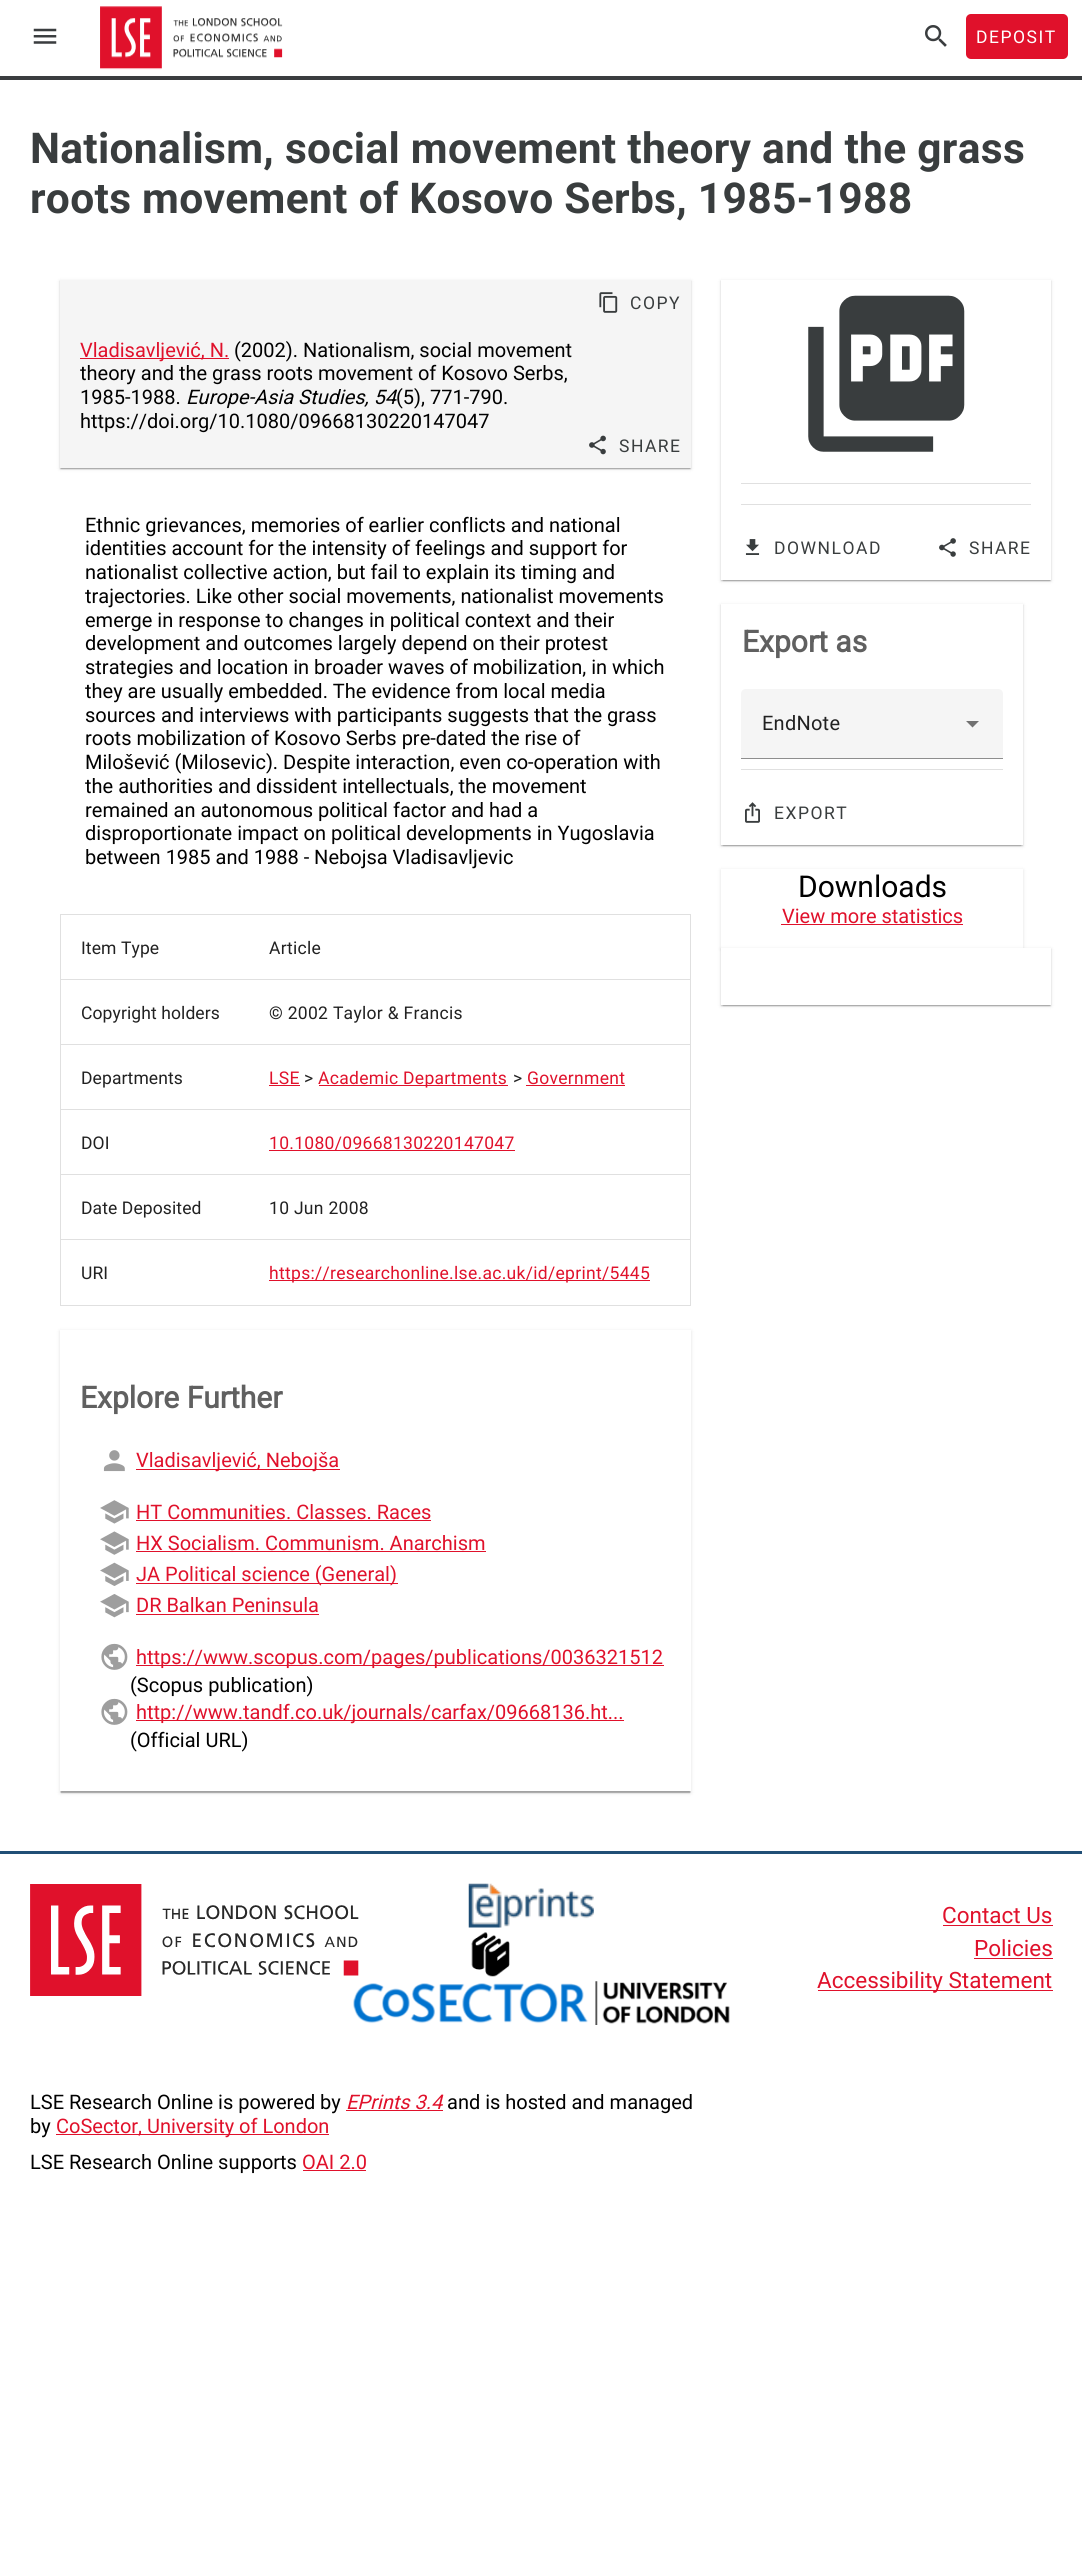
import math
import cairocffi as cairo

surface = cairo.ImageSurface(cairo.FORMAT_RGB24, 1082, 2566)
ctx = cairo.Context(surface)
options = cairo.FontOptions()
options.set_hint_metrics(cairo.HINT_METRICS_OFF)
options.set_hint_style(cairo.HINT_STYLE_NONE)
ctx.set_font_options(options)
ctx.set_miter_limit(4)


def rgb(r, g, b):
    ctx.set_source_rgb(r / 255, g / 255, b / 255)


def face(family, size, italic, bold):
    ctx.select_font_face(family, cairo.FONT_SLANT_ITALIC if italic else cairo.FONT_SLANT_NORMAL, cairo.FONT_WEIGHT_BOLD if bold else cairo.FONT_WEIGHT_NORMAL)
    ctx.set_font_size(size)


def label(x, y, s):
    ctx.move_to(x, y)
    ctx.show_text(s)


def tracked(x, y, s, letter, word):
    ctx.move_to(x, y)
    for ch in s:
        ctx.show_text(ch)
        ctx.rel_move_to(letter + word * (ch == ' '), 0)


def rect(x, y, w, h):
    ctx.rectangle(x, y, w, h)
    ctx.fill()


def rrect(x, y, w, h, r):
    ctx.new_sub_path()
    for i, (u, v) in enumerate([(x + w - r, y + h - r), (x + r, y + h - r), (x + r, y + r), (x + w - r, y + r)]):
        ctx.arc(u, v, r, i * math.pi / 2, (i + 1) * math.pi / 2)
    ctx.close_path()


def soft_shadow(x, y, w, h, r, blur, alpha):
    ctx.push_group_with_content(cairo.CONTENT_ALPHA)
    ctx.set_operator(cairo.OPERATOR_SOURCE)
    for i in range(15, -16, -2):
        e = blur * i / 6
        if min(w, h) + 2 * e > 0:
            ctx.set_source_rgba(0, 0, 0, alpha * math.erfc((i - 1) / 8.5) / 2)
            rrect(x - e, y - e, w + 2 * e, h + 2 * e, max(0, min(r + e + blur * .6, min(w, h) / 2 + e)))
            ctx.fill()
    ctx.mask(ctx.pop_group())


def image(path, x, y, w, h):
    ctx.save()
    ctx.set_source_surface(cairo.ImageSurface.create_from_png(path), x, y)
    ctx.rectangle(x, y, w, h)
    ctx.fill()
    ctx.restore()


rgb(255, 255, 255)
ctx.paint()
rgb(58, 61, 63)
rect(0, 76, 1082, 4)
image('image0.png', 33, 28, 24, 16)
image('image1.png', 100, 6, 183, 64)
image('image2.png', 925, 25, 22, 22)
rgb(224, 17, 43)
rrect(966, 14, 102, 45, 5)
ctx.fill()
face('Roboto', 17.5, 0, 0)
rgb(255, 255, 255)
tracked(976, 43, 'DEPOSIT', 1.5, 0)
face('Roboto', 42.5, 0, 1)
rgb(57, 61, 62)
tracked(30, 163, 'Nationalism, social movement theory and the grass', 0.3, 0)
tracked(30, 213, 'roots movement of Kosovo Serbs, 1985-1988', 0.3, 0)
rgb(0, 0, 0)
soft_shadow(60, 281, 631, 188, 0, 2, 0.12)
soft_shadow(60, 281, 631, 188, 0, 0.5, 0.14)
soft_shadow(61, 284, 629, 185, 0, 0.5, 0.2)
rgb(245, 245, 245)
rect(60, 280, 631, 188)
rgb(224, 17, 43)
rect(80, 358, 149, 1)
face('Roboto', 20, 0, 0)
label(80, 357, 'Vladisavljević, N.')
rgb(0, 0, 0)
label(234, 357, '(2002). Nationalism, social movement')
label(80, 380, 'theory and the grass roots movement of Kosovo Serbs,')
label(80, 404, '1985-1988.')
face('Roboto', 20, 1, 0)
label(186, 404, 'Europe-Asia Studies, 54')
face('Roboto', 20, 0, 0)
label(396, 404, '(5), 771-790.')
label(80, 428, 'https://doi.org/10.1080/09668130220147047')
image('image3.png', 599, 292, 19, 21)
face('Roboto', 17.5, 0, 0)
rgb(57, 61, 62)
tracked(630, 309, 'COPY', 1.5, 0)
image('image4.png', 589, 435, 17, 20)
tracked(619, 452, 'SHARE', 1.5, 0)
face('Roboto', 20, 0, 0)
rgb(0, 0, 0)
label(85, 532, 'Ethnic grievances, memories of earlier conflicts and national')
label(85, 555, 'identities account for the intensity of feelings and support for')
label(85, 579, 'nationalist collective action, but fail to explain its timing and')
label(85, 603, 'trajectories. Like other social movements, nationalist movements')
label(85, 627, 'emerge in response to changes in political context and their')
label(85, 650, 'development and outcomes largely depend on their protest')
label(85, 674, 'strategies and location in broader waves of mobilization, in which')
label(85, 698, 'they are usually embedded. The evidence from local media')
label(85, 722, 'sources and interviews with participants suggests that the grass')
label(85, 745, 'roots mobilization of Kosovo Serbs pre-dated the rise of')
label(85, 769, 'Milošević (Milosevic). Despite interaction, even co-operation with')
label(85, 793, 'the authorities and dissident intellectuals, the movement')
label(85, 817, 'remained an autonomous political factor and had a')
label(85, 840, 'disproportionate impact on political developments in Yugoslavia')
label(85, 864, 'between 1985 and 1988 - Nebojsa Vladisavljevic')
ctx.rectangle(60.5, 914.5, 630, 391)
rgb(224, 224, 224)
ctx.set_line_width(1)
ctx.stroke()
rect(61, 979, 629, 1)
face('Roboto', 17.5, 0, 0)
rgb(33, 33, 33)
tracked(81, 954, 'Item Type', 0.1, 0)
tracked(269, 954, 'Article', 0.3, 0)
rgb(224, 224, 224)
rect(61, 1044, 629, 1)
rgb(33, 33, 33)
tracked(81, 1019, 'Copyright holders', 0.1, 0)
tracked(269, 1019, '© 2002 Taylor & Francis', 0.3, 0)
rgb(224, 224, 224)
rect(61, 1109, 629, 1)
rgb(33, 33, 33)
tracked(81, 1084, 'Departments', 0.1, 0)
rgb(224, 17, 43)
tracked(269, 1084, 'LSE', 0.3, 0)
rect(269, 1085, 31, 1)
rgb(33, 33, 33)
tracked(304, 1084, '>', 0.3, 0)
rgb(224, 17, 43)
rect(319, 1085, 189, 1)
tracked(318, 1084, 'Academic Departments', 0.3, 0)
rgb(33, 33, 33)
tracked(513, 1084, '>', 0.3, 0)
rgb(224, 17, 43)
tracked(527, 1084, 'Government', 0.3, 0)
rect(526, 1085, 99, 1)
rgb(224, 224, 224)
rect(61, 1174, 629, 1)
rgb(33, 33, 33)
tracked(81, 1149, 'DOI', 0.1, 0)
rgb(224, 17, 43)
rect(269, 1150, 246, 1)
tracked(269, 1149, '10.1080/09668130220147047', 0.3, 0)
rgb(224, 224, 224)
rect(61, 1239, 629, 1)
rgb(33, 33, 33)
tracked(81, 1214, 'Date Deposited', 0.1, 0)
tracked(269, 1214, '10 Jun 2008', 0.3, 0)
tracked(81, 1279, 'URI', 0.1, 0)
rgb(224, 17, 43)
rect(269, 1280, 381, 1)
tracked(269, 1279, 'https://researchonline.lse.ac.uk/id/eprint/5445', 0.3, 0)
ctx.save()
ctx.set_fill_rule(cairo.FILL_RULE_EVEN_ODD)
ctx.new_path()
ctx.move_to(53, 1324)
ctx.line_to(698, 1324)
ctx.line_to(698, 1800)
ctx.line_to(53, 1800)
ctx.close_path()
ctx.move_to(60, 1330)
ctx.line_to(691, 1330)
ctx.line_to(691, 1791)
ctx.line_to(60, 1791)
ctx.close_path()
ctx.clip()
rgb(0, 0, 0)
soft_shadow(60, 1331, 631, 462, 0, 2, 0.12)
ctx.restore()
ctx.save()
ctx.rectangle(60, 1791, 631, 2)
ctx.clip()
rgb(0, 0, 0)
soft_shadow(60, 1331, 631, 462, 0, 0.5, 0.14)
ctx.restore()
ctx.save()
ctx.rectangle(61, 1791, 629, 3)
ctx.clip()
rgb(0, 0, 0)
soft_shadow(61, 1334, 629, 459, 0, 0.5, 0.2)
ctx.restore()
face('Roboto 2', 30, 0, 1)
rgb(96, 96, 96)
label(80, 1408, 'Explore Further')
image('image5.png', 103, 1450, 22, 22)
rgb(224, 17, 43)
rect(136, 1469, 204, 1)
face('Roboto', 20, 0, 0)
label(136, 1467, 'Vladisavljević, Nebojša')
image('image6.png', 100, 1500, 29, 24)
label(136, 1519, 'HT Communities. Classes. Races')
rect(136, 1520, 295, 1)
image('image7.png', 100, 1531, 29, 24)
label(136, 1550, 'HX Socialism. Communism. Anarchism')
rect(136, 1551, 350, 1)
image('image8.png', 100, 1562, 29, 24)
rect(136, 1583, 262, 1)
label(136, 1581, 'JA Political science (General)')
image('image9.png', 100, 1594, 29, 24)
label(136, 1612, 'DR Balkan Peninsula')
rect(136, 1614, 183, 1)
image('image10.png', 101, 1643, 27, 27)
rect(136, 1665, 528, 1)
label(136, 1664, 'https://www.scopus.com/pages/publications/0036321512')
rgb(0, 0, 0)
label(130, 1692, '(Scopus publication)')
image('image10.png', 101, 1698, 27, 27)
rgb(224, 17, 43)
rect(136, 1720, 488, 1)
label(136, 1719, 'http://www.tandf.co.uk/journals/carfax/09668136.ht...')
rgb(0, 0, 0)
label(130, 1747, '(Official URL)')
rgb(0, 0, 0)
soft_shadow(721, 281, 330, 300, 0, 2, 0.12)
soft_shadow(721, 281, 330, 300, 0, 0.5, 0.14)
soft_shadow(723, 284, 327, 297, 0, 0.5, 0.2)
rgb(255, 255, 255)
rect(721, 280, 330, 300)
image('image11.png', 808, 295, 157, 157)
rgb(224, 224, 224)
rect(741, 483, 290, 1)
rect(741, 504, 290, 1)
image('image12.png', 745, 539, 15, 16)
face('Roboto', 17.5, 0, 0)
rgb(57, 61, 62)
tracked(774, 554, 'DOWNLOAD', 1.5, 0)
image('image13.png', 939, 538, 17, 19)
tracked(969, 554, 'SHARE', 1.5, 0)
rgb(0, 0, 0)
soft_shadow(721, 605, 302, 241, 0, 2, 0.12)
soft_shadow(721, 605, 302, 241, 0, 0.5, 0.14)
soft_shadow(723, 608, 298, 238, 0, 0.5, 0.2)
rgb(255, 255, 255)
rect(721, 604, 302, 241)
face('Roboto 2', 30, 0, 1)
rgb(96, 96, 96)
label(742, 652, 'Export as')
rgb(245, 245, 245)
ctx.new_path()
ctx.move_to(746, 689)
ctx.line_to(998, 689)
ctx.curve_to(1001, 689, 1003, 691, 1003, 694)
ctx.line_to(1003, 759)
ctx.line_to(741, 759)
ctx.line_to(741, 694)
ctx.curve_to(741, 691, 743, 689, 746, 689)
ctx.close_path()
ctx.fill()
face('Roboto', 20, 0, 0)
rgb(33, 33, 33)
tracked(762, 730, 'EndNote', 0.25, 0)
rgb(113, 113, 113)
ctx.set_fill_rule(cairo.FILL_RULE_EVEN_ODD)
ctx.new_path()
ctx.move_to(966, 721)
ctx.line_to(972.5, 727.5)
ctx.line_to(979, 721)
ctx.close_path()
ctx.fill()
rgb(142, 142, 142)
rect(741, 758, 262, 1)
rgb(224, 224, 224)
rect(741, 769, 262, 1)
image('image14.png', 745, 802, 15, 21)
face('Roboto', 17.5, 0, 0)
rgb(57, 61, 62)
tracked(774, 819, 'EXPORT', 1.5, 0)
rgb(0, 0, 0)
soft_shadow(721, 870, 302, 79, 0, 2, 0.12)
rgb(255, 255, 255)
rect(721, 869, 302, 79)
face('Roboto', 30, 0, 0)
rgb(0, 0, 0)
label(798, 897, 'Downloads')
face('Roboto', 20, 0, 0)
rgb(224, 17, 43)
label(782, 923, 'View more statistics')
rect(781, 924, 182, 1)
rgb(0, 0, 0)
soft_shadow(721, 949, 330, 57, 0, 2, 0.12)
soft_shadow(721, 949, 330, 57, 0, 0.5, 0.14)
soft_shadow(723, 951, 327, 55, 0, 0.5, 0.2)
rgb(255, 255, 255)
rect(721, 948, 330, 57)
rgb(32, 79, 118)
rect(0, 1851, 1082, 3)
image('image15.png', 30, 1884, 329, 112)
image('image16.png', 468, 1883, 126, 45)
image('image17.png', 471, 1932, 39, 45)
image('image18.png', 353, 1981, 377, 44)
face('Roboto', 22.5, 0, 0)
rgb(224, 17, 43)
label(942, 1923, 'Contact Us')
rect(943, 1925, 110, 1)
label(974, 1956, 'Policies')
rect(974, 1958, 79, 1)
rect(818, 1990, 235, 1)
label(817, 1988, 'Accessibility Statement')
face('Roboto', 20, 0, 0)
rgb(0, 0, 0)
label(30, 2109, 'LSE Research Online is powered by')
face('Roboto', 20, 1, 0)
rgb(224, 17, 43)
label(346, 2109, 'EPrints 3.4')
rect(346, 2110, 97, 1)
face('Roboto', 20, 0, 0)
rgb(0, 0, 0)
label(447, 2109, 'and is hosted and managed')
label(30, 2133, 'by')
rgb(224, 17, 43)
rect(56, 2134, 273, 1)
label(56, 2133, 'CoSector, University of London')
rgb(0, 0, 0)
label(30, 2169, 'LSE Research Online supports')
rgb(224, 17, 43)
label(302, 2169, 'OAI 2.0')
rect(303, 2170, 63, 1)
surface.write_to_png('render.png')
